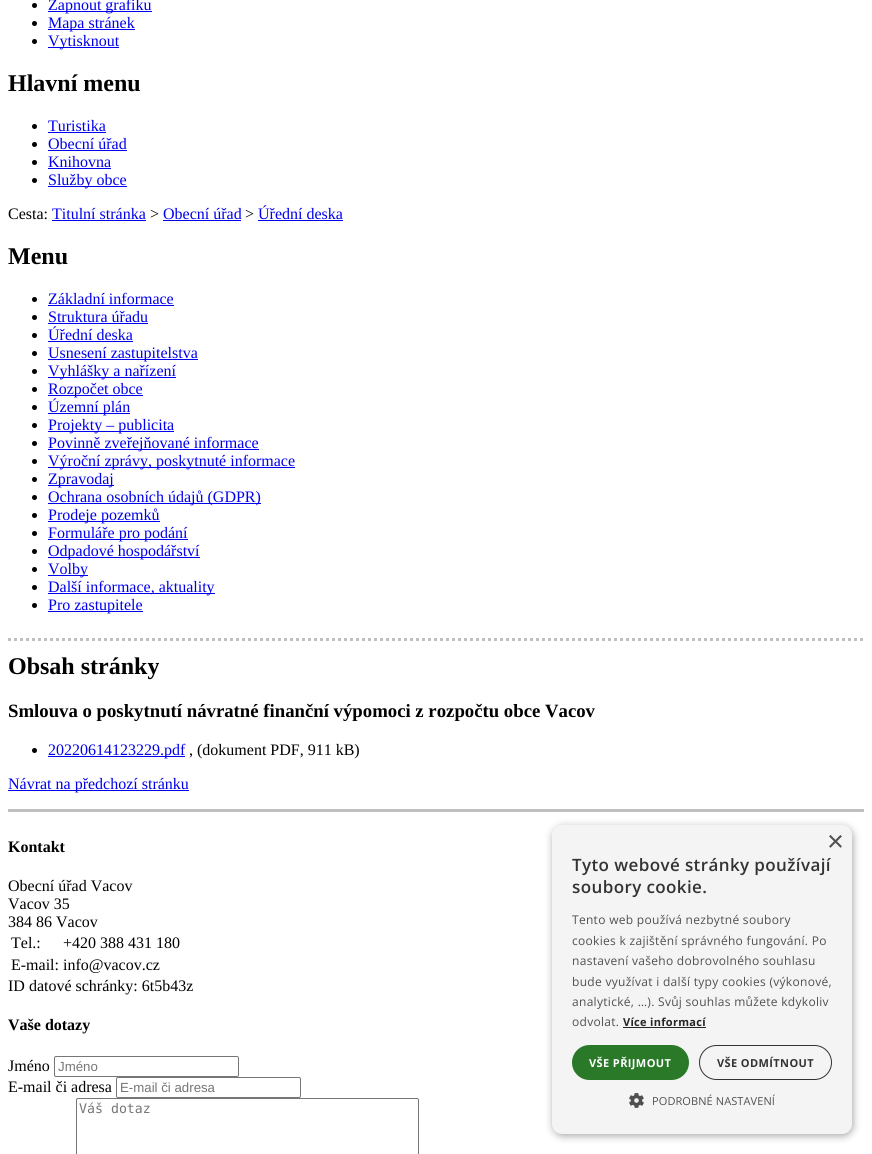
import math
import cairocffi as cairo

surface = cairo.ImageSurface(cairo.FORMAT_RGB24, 872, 1154)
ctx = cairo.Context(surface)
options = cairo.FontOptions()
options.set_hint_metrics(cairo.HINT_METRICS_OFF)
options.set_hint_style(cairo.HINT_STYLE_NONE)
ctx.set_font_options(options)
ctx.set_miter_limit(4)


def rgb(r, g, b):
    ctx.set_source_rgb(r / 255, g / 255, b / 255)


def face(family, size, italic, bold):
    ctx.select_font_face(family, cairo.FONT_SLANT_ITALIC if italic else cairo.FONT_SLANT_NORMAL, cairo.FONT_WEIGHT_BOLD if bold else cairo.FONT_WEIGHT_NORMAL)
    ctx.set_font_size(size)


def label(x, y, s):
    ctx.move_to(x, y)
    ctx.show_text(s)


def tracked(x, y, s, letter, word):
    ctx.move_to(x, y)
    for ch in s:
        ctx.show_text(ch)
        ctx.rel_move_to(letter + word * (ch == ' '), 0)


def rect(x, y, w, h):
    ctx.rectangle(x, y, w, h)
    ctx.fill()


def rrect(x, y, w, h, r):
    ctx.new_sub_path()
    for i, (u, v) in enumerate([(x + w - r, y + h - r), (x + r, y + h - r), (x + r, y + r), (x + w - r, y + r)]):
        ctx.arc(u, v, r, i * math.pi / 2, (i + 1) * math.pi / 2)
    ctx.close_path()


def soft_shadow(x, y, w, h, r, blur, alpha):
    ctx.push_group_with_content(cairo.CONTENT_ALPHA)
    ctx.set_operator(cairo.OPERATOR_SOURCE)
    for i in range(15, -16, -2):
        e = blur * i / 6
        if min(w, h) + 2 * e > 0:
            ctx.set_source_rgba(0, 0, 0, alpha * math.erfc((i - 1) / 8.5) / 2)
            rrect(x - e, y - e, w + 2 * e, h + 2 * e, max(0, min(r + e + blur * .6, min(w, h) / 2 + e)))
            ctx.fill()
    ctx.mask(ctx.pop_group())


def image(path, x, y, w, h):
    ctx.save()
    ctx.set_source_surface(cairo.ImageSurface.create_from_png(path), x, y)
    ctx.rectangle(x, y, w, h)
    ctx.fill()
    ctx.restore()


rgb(255, 255, 255)
ctx.paint()
rgb(0, 0, 0)
ctx.arc(34.5, 5.5, 2.5, 0, 2 * math.pi)
ctx.fill()
rgb(0, 0, 238)
rect(48, 11, 104, 1)
face('Liberation Serif', 16, 0, 0)
label(48, 10, 'Zapnout grafiku')
rgb(0, 0, 0)
ctx.new_path()
ctx.arc(34.5, 23.5, 2.5, 0, 2 * math.pi)
ctx.fill()
rgb(0, 0, 238)
rect(48, 29, 87, 1)
label(48, 28, 'Mapa stránek')
rgb(0, 0, 0)
ctx.new_path()
ctx.arc(34.5, 41.5, 2.5, 0, 2 * math.pi)
ctx.fill()
rgb(0, 0, 238)
rect(48, 47, 71, 1)
label(48, 46, 'Vytisknout')
face('Liberation Serif', 24, 0, 1)
rgb(0, 0, 0)
label(8, 91, 'Hlavní menu')
ctx.new_path()
ctx.arc(34.5, 126.5, 2.5, 0, 2 * math.pi)
ctx.fill()
face('Liberation Serif', 16, 0, 0)
rgb(0, 0, 238)
label(48, 131, 'Turistika')
rect(48, 132, 58, 1)
rgb(0, 0, 0)
ctx.new_path()
ctx.arc(34.5, 144.5, 2.5, 0, 2 * math.pi)
ctx.fill()
rgb(0, 0, 238)
label(48, 149, 'Obecní úřad')
rect(48, 150, 79, 1)
rgb(0, 0, 0)
ctx.new_path()
ctx.arc(34.5, 162.5, 2.5, 0, 2 * math.pi)
ctx.fill()
rgb(0, 0, 238)
label(48, 167, 'Knihovna')
rect(48, 168, 63, 1)
rgb(0, 0, 0)
ctx.new_path()
ctx.arc(34.5, 180.5, 2.5, 0, 2 * math.pi)
ctx.fill()
rgb(0, 0, 238)
rect(48, 186, 79, 1)
label(48, 185, 'Služby obce')
rgb(0, 0, 0)
label(8, 219, 'Cesta:')
rgb(0, 0, 238)
label(52, 219, 'Titulní stránka')
rect(52, 220, 94, 1)
rgb(0, 0, 0)
label(150, 219, '>')
rgb(0, 0, 238)
label(163, 219, 'Obecní úřad')
rect(163, 220, 78, 1)
rgb(0, 0, 0)
label(245, 219, '>')
rgb(0, 0, 238)
label(258, 219, 'Úřední deska')
rect(258, 220, 85, 1)
face('Liberation Serif', 24, 0, 1)
rgb(0, 0, 0)
label(8, 264, 'Menu')
ctx.new_path()
ctx.arc(34.5, 299.5, 2.5, 0, 2 * math.pi)
ctx.fill()
face('Liberation Serif', 16, 0, 0)
rgb(0, 0, 238)
label(48, 304, 'Základní informace')
rect(48, 305, 126, 1)
rgb(0, 0, 0)
ctx.new_path()
ctx.arc(34.5, 317.5, 2.5, 0, 2 * math.pi)
ctx.fill()
rgb(0, 0, 238)
label(48, 322, 'Struktura úřadu')
rect(48, 323, 100, 1)
rgb(0, 0, 0)
ctx.new_path()
ctx.arc(34.5, 335.5, 2.5, 0, 2 * math.pi)
ctx.fill()
rgb(0, 0, 238)
label(48, 340, 'Úřední deska')
rect(48, 341, 85, 1)
rgb(0, 0, 0)
ctx.new_path()
ctx.arc(34.5, 353.5, 2.5, 0, 2 * math.pi)
ctx.fill()
rgb(0, 0, 238)
rect(48, 359, 150, 1)
label(48, 358, 'Usnesení zastupitelstva')
rgb(0, 0, 0)
ctx.new_path()
ctx.arc(34.5, 371.5, 2.5, 0, 2 * math.pi)
ctx.fill()
rgb(0, 0, 238)
rect(48, 377, 128, 1)
label(48, 376, 'Vyhlášky a nařízení')
rgb(0, 0, 0)
ctx.new_path()
ctx.arc(34.5, 389.5, 2.5, 0, 2 * math.pi)
ctx.fill()
rgb(0, 0, 238)
rect(48, 395, 95, 1)
label(48, 394, 'Rozpočet obce')
rgb(0, 0, 0)
ctx.new_path()
ctx.arc(34.5, 407.5, 2.5, 0, 2 * math.pi)
ctx.fill()
rgb(0, 0, 238)
rect(48, 413, 82, 1)
label(48, 412, 'Územní plán')
rgb(0, 0, 0)
ctx.new_path()
ctx.arc(34.5, 425.5, 2.5, 0, 2 * math.pi)
ctx.fill()
rgb(0, 0, 238)
rect(48, 431, 126, 1)
label(48, 430, 'Projekty – publicita')
rgb(0, 0, 0)
ctx.new_path()
ctx.arc(34.5, 443.5, 2.5, 0, 2 * math.pi)
ctx.fill()
rgb(0, 0, 238)
rect(48, 449, 211, 1)
label(48, 448, 'Povinně zveřejňované informace')
rgb(0, 0, 0)
ctx.new_path()
ctx.arc(34.5, 461.5, 2.5, 0, 2 * math.pi)
ctx.fill()
rgb(0, 0, 238)
rect(48, 467, 247, 1)
label(48, 466, 'Výroční zprávy, poskytnuté informace')
rgb(0, 0, 0)
ctx.new_path()
ctx.arc(34.5, 479.5, 2.5, 0, 2 * math.pi)
ctx.fill()
rgb(0, 0, 238)
rect(48, 485, 66, 1)
label(48, 484, 'Zpravodaj')
rgb(0, 0, 0)
ctx.new_path()
ctx.arc(34.5, 497.5, 2.5, 0, 2 * math.pi)
ctx.fill()
rgb(0, 0, 238)
rect(48, 503, 213, 1)
label(48, 502, 'Ochrana osobních údajů (GDPR)')
rgb(0, 0, 0)
ctx.new_path()
ctx.arc(34.5, 515.5, 2.5, 0, 2 * math.pi)
ctx.fill()
rgb(0, 0, 238)
rect(48, 521, 112, 1)
label(48, 520, 'Prodeje pozemků')
rgb(0, 0, 0)
ctx.new_path()
ctx.arc(34.5, 533.5, 2.5, 0, 2 * math.pi)
ctx.fill()
rgb(0, 0, 238)
rect(48, 539, 140, 1)
label(48, 538, 'Formuláře pro podání')
rgb(0, 0, 0)
ctx.new_path()
ctx.arc(34.5, 551.5, 2.5, 0, 2 * math.pi)
ctx.fill()
rgb(0, 0, 238)
rect(48, 557, 152, 1)
label(48, 556, 'Odpadové hospodářství')
rgb(0, 0, 0)
ctx.new_path()
ctx.arc(34.5, 569.5, 2.5, 0, 2 * math.pi)
ctx.fill()
rgb(0, 0, 238)
rect(48, 575, 40, 1)
label(48, 574, 'Volby')
rgb(0, 0, 0)
ctx.new_path()
ctx.arc(34.5, 587.5, 2.5, 0, 2 * math.pi)
ctx.fill()
rgb(0, 0, 238)
rect(48, 593, 167, 1)
label(48, 592, 'Další informace, aktuality')
rgb(0, 0, 0)
ctx.new_path()
ctx.arc(34.5, 605.5, 2.5, 0, 2 * math.pi)
ctx.fill()
rgb(0, 0, 238)
rect(48, 611, 95, 1)
label(48, 610, 'Pro zastupitele')
ctx.new_path()
ctx.move_to(8, 639.5)
ctx.line_to(864, 639.5)
rgb(192, 192, 192)
ctx.set_line_width(3)
ctx.set_dash([3, 3])
ctx.stroke()
face('Liberation Serif', 24, 0, 1)
rgb(0, 0, 0)
label(8, 674, 'Obsah stránky')
face('Liberation Serif', 18.75, 0, 1)
label(8, 717, 'Smlouva o poskytnutí návratné finanční výpomoci z rozpočtu obce Vacov')
ctx.new_path()
ctx.arc(34.5, 750.5, 2.5, 0, 2 * math.pi)
ctx.fill()
rgb(0, 0, 238)
rect(48, 756, 137, 1)
face('Liberation Serif', 16, 0, 0)
label(48, 755, '20220614123229.pdf')
rgb(0, 0, 0)
label(189, 755, ', (dokument PDF, 911 kB)')
rgb(0, 0, 238)
rect(8, 790, 181, 1)
label(8, 789, 'Návrat na předchozí stránku')
rgb(192, 192, 192)
rect(8, 809, 856, 3)
face('Liberation Serif', 16, 0, 1)
rgb(0, 0, 0)
label(8, 852, 'Kontakt')
face('Liberation Serif', 16, 0, 0)
label(8, 891, 'Obecní úřad Vacov')
label(8, 909, 'Vacov 35')
label(8, 927, '384 86 Vacov')
label(11, 948, 'Tel.:')
label(63, 948, '+420 388 431 180')
label(11, 970, 'E-mail: info@vacov.cz')
label(8, 991, 'ID datové schránky: 6t5b43z')
face('Liberation Serif', 16, 0, 1)
label(8, 1030, 'Vaše dotazy')
face('Liberation Serif', 16, 0, 0)
label(8, 1071, 'Jméno')
rrect(54.5, 1056.5, 184, 20, 1.5)
rgb(118, 118, 118)
ctx.set_line_width(1)
ctx.set_dash([])
ctx.stroke()
face('Liberation Sans', 13.25, 0, 0)
rgb(117, 117, 117)
label(58, 1071, 'Jméno')
face('Liberation Serif', 16, 0, 0)
rgb(0, 0, 0)
label(8, 1092, 'E-mail či adresa')
rrect(116.5, 1077.5, 184, 20, 1.5)
rgb(118, 118, 118)
ctx.stroke()
face('Liberation Sans', 13.25, 0, 0)
rgb(117, 117, 117)
label(120, 1092, 'E-mail či adresa')
rrect(76.5, 1098.5, 342, 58, 1.5)
rgb(118, 118, 118)
ctx.stroke()
face('DejaVu Sans Mono', 13.25, 0, 0)
rgb(117, 117, 117)
label(79, 1113, 'Váš dotaz')
rgb(0, 0, 0)
soft_shadow(553, 827, 300, 309, 10, 4, 0.35)
rgb(244, 244, 244)
rrect(552, 825, 300, 309, 10)
ctx.fill()
face('Liberation Sans', 29, 0, 0)
rgb(80, 80, 80)
label(827, 851, '×')
face('Open Sans SemiBold', 17, 0, 0)
rgb(51, 51, 51)
tracked(572, 871, 'Tyto webové stránky používají', 0.4, 0)
tracked(572, 893, 'soubory cookie.', 0.4, 0)
face('Open Sans', 12, 0, 0)
rgb(80, 80, 80)
tracked(572, 924, 'Tento web používá nezbytné soubory', 0.3, 0)
tracked(572, 945, 'cookies k zajištění správného fungování. Po', 0.3, 0)
tracked(572, 965, 'nastavení vašeho dobrovolného souhlasu', 0.3, 0)
tracked(572, 986, 'bude využívat i další typy cookies (výkonové,', 0.3, 0)
tracked(572, 1006, 'analytické, …). Svůj souhlas můžete kdykoliv', 0.3, 0)
tracked(572, 1026, 'odvolat.', 0.3, 0)
face('Open Sans', 11, 0, 1)
rgb(37, 37, 37)
tracked(623, 1026, 'Více informací', 0.3, 0)
rect(623, 1027, 83, 1)
rgb(41, 121, 41)
rrect(572, 1045, 117, 35, 17.5)
ctx.fill()
rgb(255, 255, 255)
tracked(589, 1067, 'VŠE PŘIJMOUT', 0.4, 0)
rrect(699.5, 1045.5, 132, 34, 17)
rgb(51, 51, 51)
ctx.stroke()
tracked(717, 1067, 'VŠE ODMÍTNOUT', 0.4, 0)
image('image0.png', 629, 1093, 15, 15)
face('Open Sans', 11, 0, 0)
rgb(80, 80, 80)
tracked(652, 1105, 'PODROBNÉ NASTAVENÍ', 0.1, 0)
surface.write_to_png('render.png')
